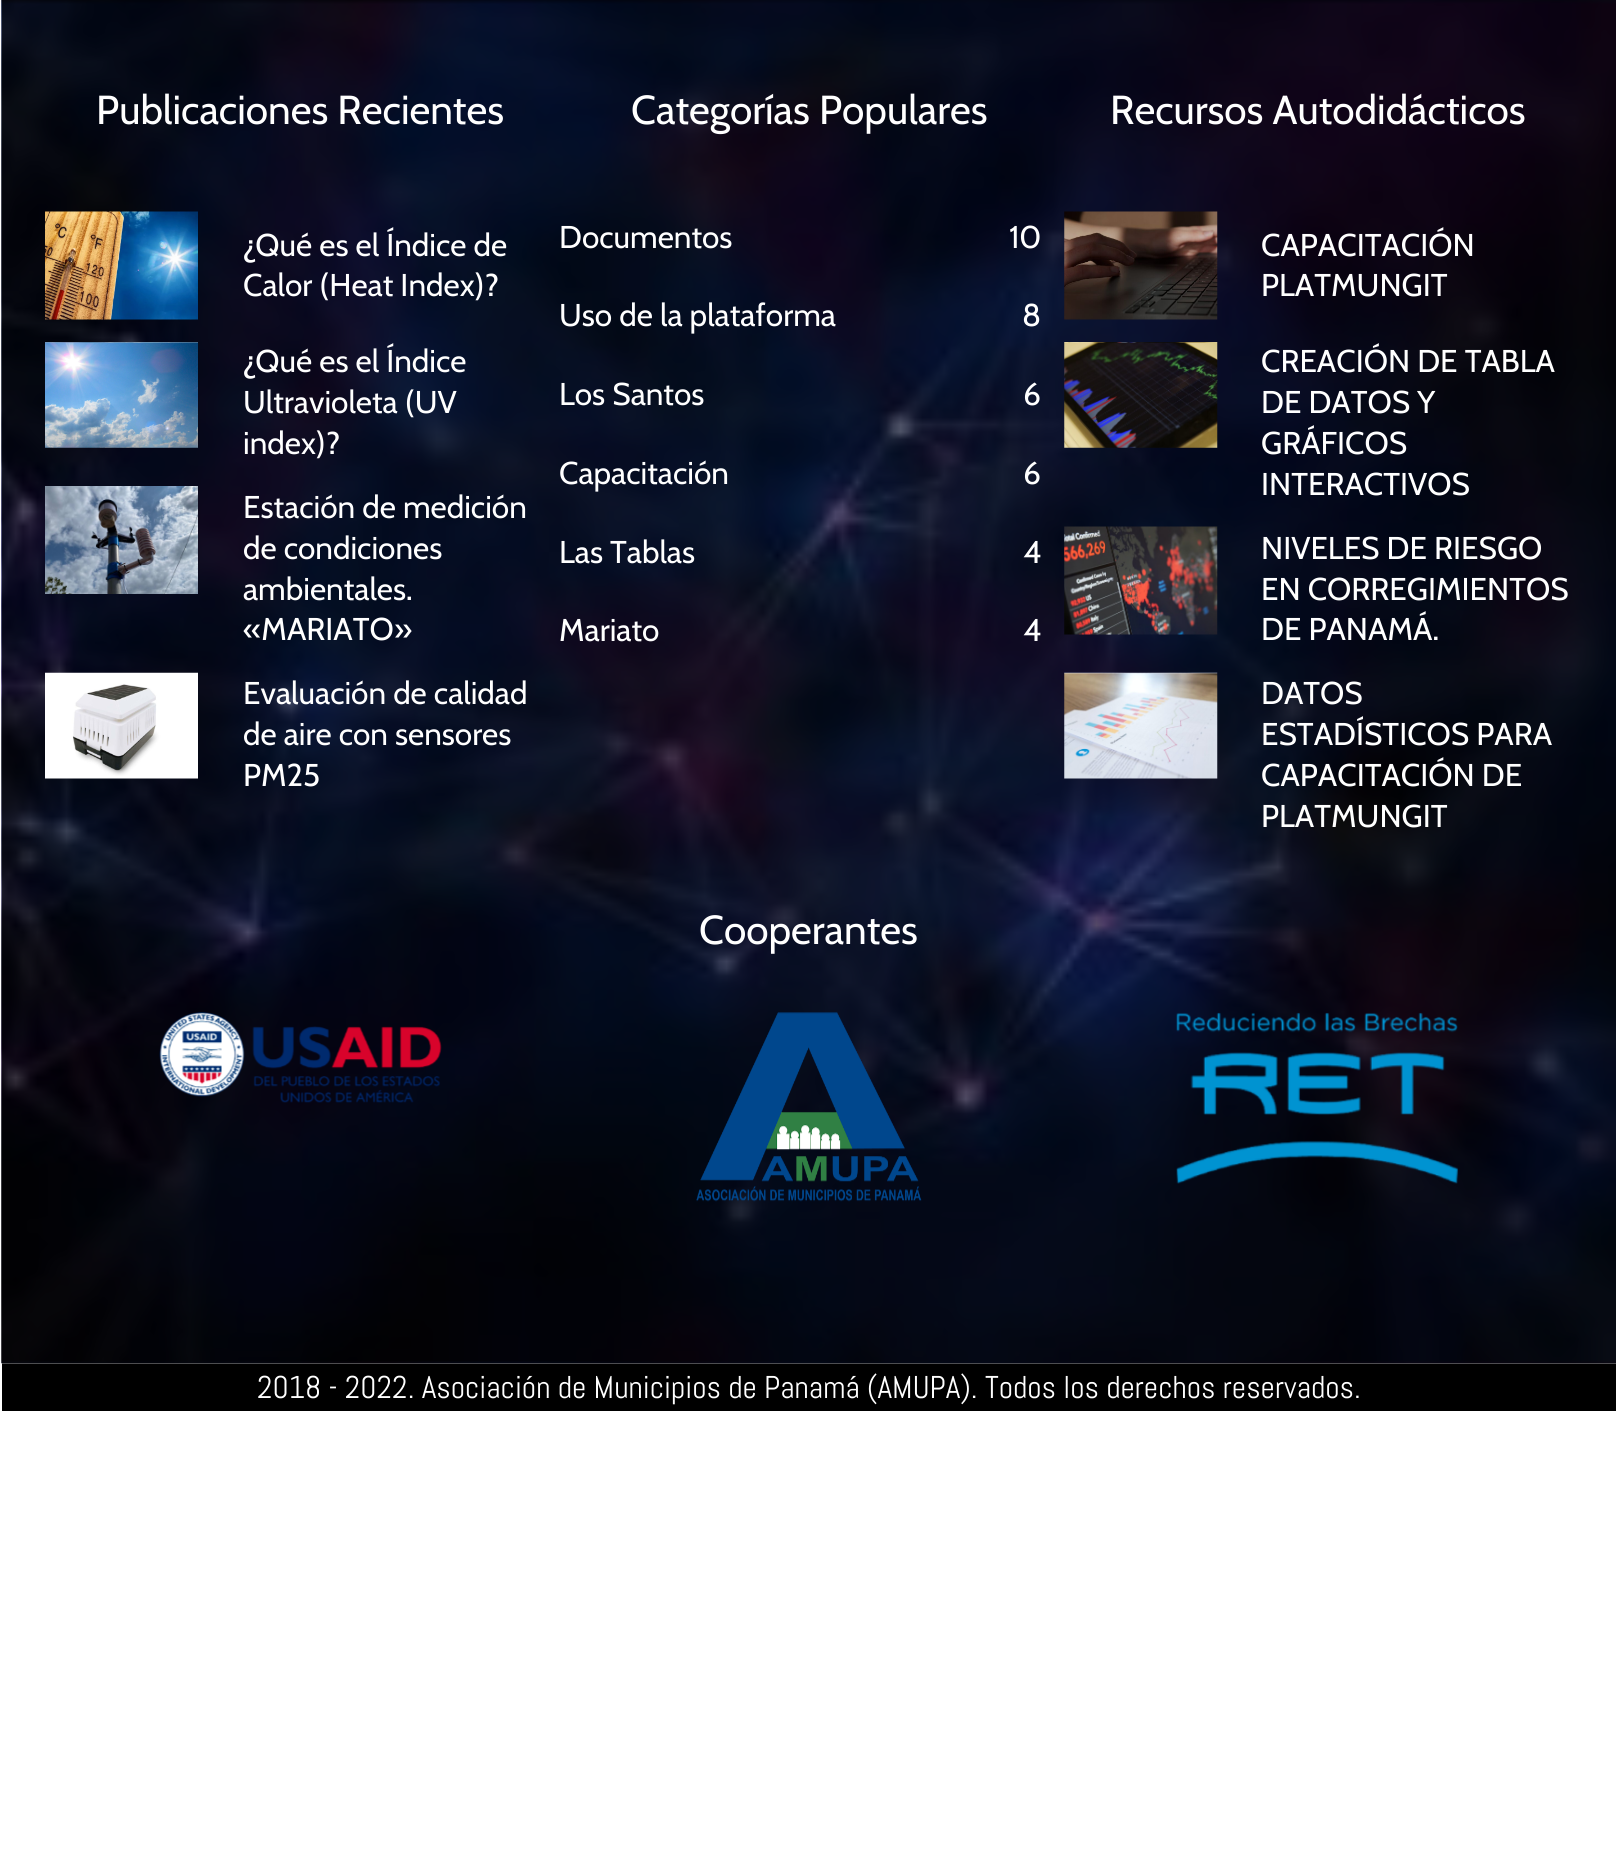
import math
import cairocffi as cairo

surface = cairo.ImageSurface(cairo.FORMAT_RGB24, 1616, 1852)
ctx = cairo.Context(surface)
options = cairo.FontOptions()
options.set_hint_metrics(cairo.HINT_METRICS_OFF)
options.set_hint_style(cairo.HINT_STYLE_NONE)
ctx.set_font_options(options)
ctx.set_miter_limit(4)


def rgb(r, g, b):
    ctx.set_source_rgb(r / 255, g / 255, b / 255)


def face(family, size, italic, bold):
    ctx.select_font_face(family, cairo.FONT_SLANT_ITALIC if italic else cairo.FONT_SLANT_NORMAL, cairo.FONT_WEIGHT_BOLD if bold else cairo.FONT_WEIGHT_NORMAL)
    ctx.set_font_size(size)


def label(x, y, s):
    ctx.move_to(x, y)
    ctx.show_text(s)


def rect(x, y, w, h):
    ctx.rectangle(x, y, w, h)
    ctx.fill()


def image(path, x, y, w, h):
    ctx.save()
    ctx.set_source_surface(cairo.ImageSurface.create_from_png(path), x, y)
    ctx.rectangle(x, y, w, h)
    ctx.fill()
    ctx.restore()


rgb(255, 255, 255)
ctx.paint()
rgb(102, 102, 102)
rect(2, 1363, 1614, 1)
image('image0.png', 1, 0, 1615, 1364)
face('Cabin', 40.5, 0, 0)
rgb(255, 255, 255)
label(96, 124, 'Publicaciones Recientes')
image('image1.png', 45, 211, 153, 109)
face('Cabin', 31.5, 0, 0)
label(243, 256, '¿Qué es el Índice de')
label(243, 296, 'Calor (Heat Index)?')
image('image2.png', 45, 342, 153, 106)
label(243, 372, '¿Qué es el Índice')
label(243, 413, 'Ultravioleta (UV')
label(243, 454, 'index)?')
image('image3.png', 45, 486, 153, 108)
label(243, 518, 'Estación de medición')
label(243, 559, 'de condiciones')
label(243, 600, 'ambientales.')
label(243, 640, '«MARIATO»')
image('image4.png', 45, 672, 153, 107)
label(243, 704, 'Evaluación de calidad')
label(243, 745, 'de aire con sensores')
label(243, 786, 'PM25')
face('Cabin', 40.5, 0, 0)
label(631, 124, 'Categorías Populares')
face('Cabin', 31.5, 0, 0)
label(559, 248, 'Documentos')
label(1009, 248, '10')
label(559, 326, 'Uso de la plataforma')
label(1022, 326, '8')
label(559, 405, 'Los Santos')
label(1023, 405, '6')
label(559, 484, 'Capacitación')
label(1023, 484, '6')
label(559, 563, 'Las Tablas')
label(1023, 563, '4')
label(559, 641, 'Mariato')
label(1023, 641, '4')
face('Cabin', 40.5, 0, 0)
label(1110, 124, 'Recursos Autodidácticos')
image('image5.png', 1064, 211, 154, 109)
face('Cabin', 31.5, 0, 0)
label(1261, 256, 'CAPACITACIÓN')
label(1261, 296, 'PLATMUNGIT')
image('image6.png', 1064, 342, 154, 106)
label(1261, 372, 'CREACIÓN DE TABLA')
label(1261, 413, 'DE DATOS Y')
label(1261, 454, 'GRÁFICOS')
label(1261, 495, 'INTERACTIVOS')
image('image7.png', 1064, 526, 154, 109)
label(1261, 559, 'NIVELES DE RIESGO')
label(1261, 600, 'EN CORREGIMIENTOS')
label(1261, 640, 'DE PANAMÁ.')
image('image8.png', 1064, 672, 154, 107)
label(1261, 704, 'DATOS')
label(1261, 745, 'ESTADÍSTICOS PARA')
label(1261, 786, 'CAPACITACIÓN DE')
label(1261, 827, 'PLATMUNGIT')
face('Cabin', 40.5, 0, 0)
label(699, 944, 'Cooperantes')
image('image9.png', 159, 1012, 283, 91)
image('image10.png', 696, 1012, 226, 190)
image('image11.png', 1176, 1012, 283, 172)
rgb(0, 0, 0)
rect(2, 1364, 1614, 47)
face('Abel', 31.5, 0, 0)
rgb(255, 255, 255)
label(257, 1398, '2018 - 2022. Asociación de Municipios de Panamá (AMUPA). Todos los derechos reservados.')
surface.write_to_png('render.png')
